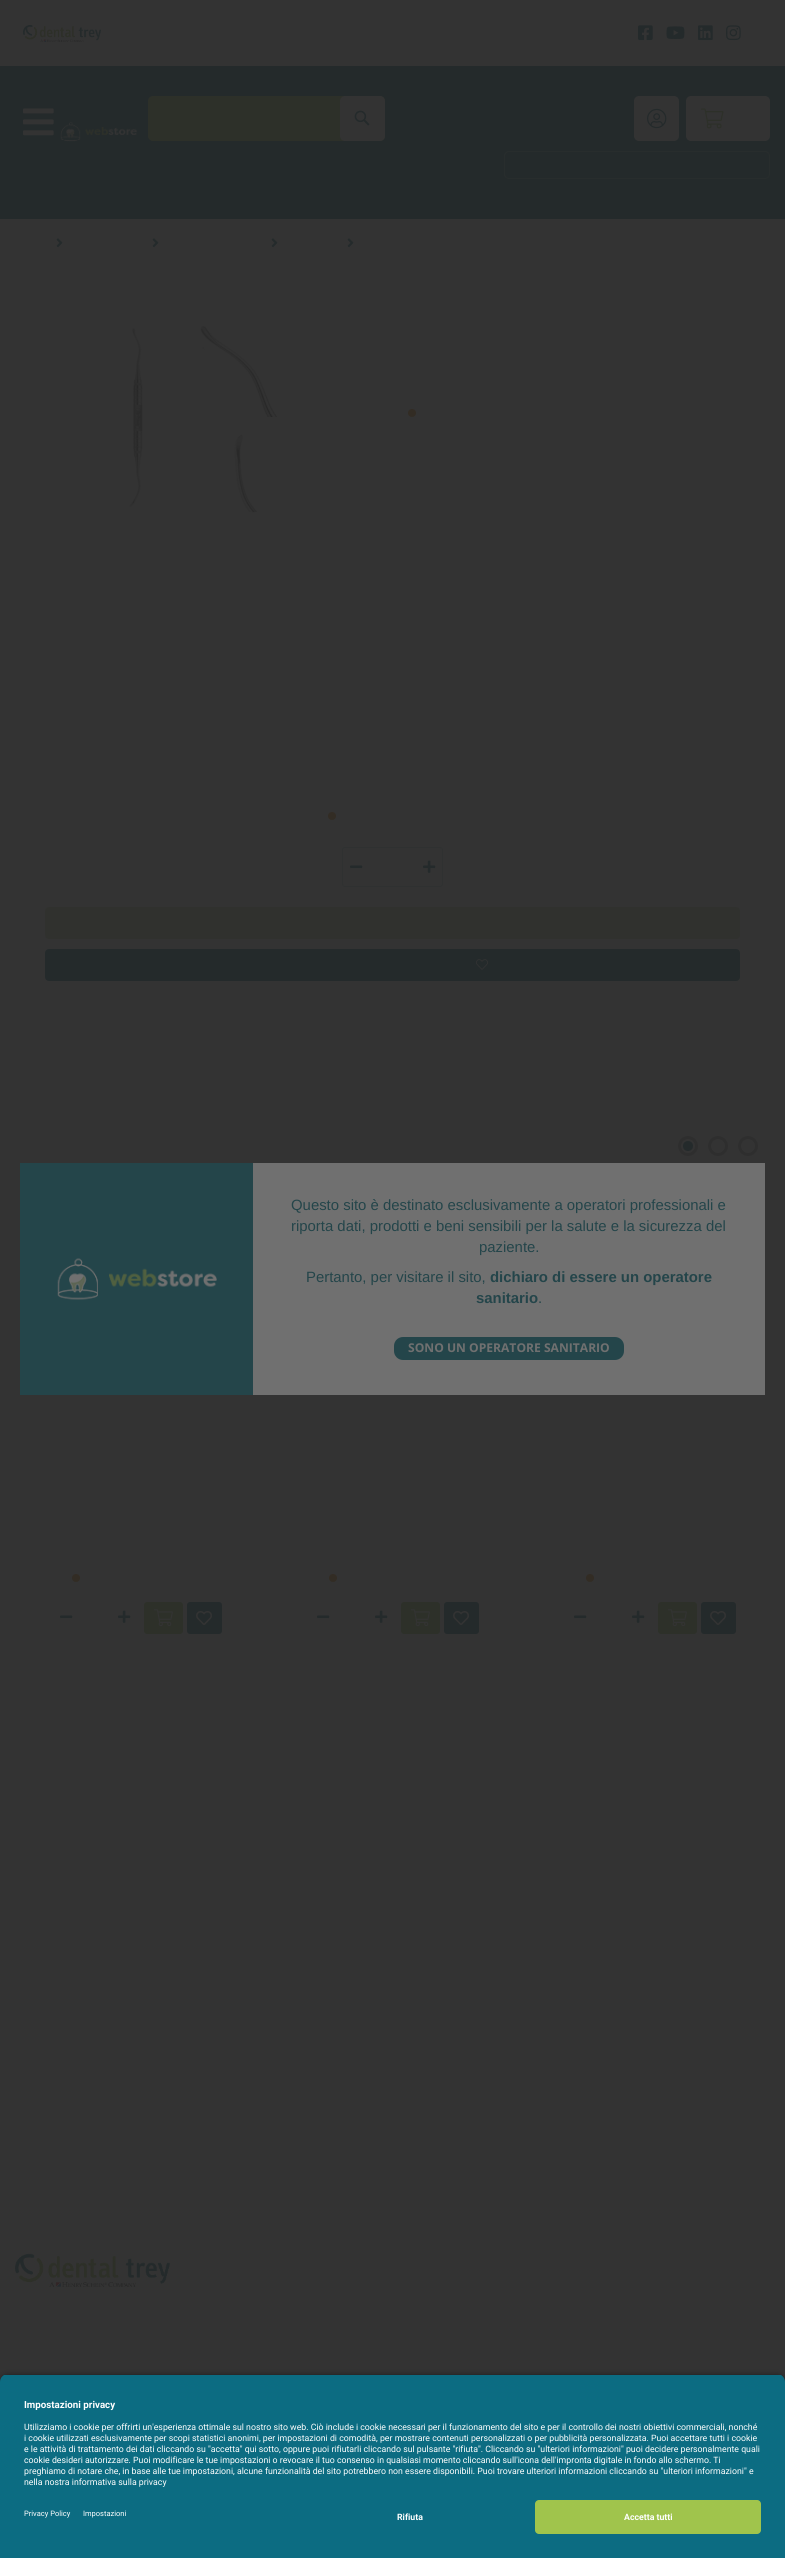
import math
import cairocffi as cairo

surface = cairo.ImageSurface(cairo.FORMAT_RGB24, 785, 2558)
ctx = cairo.Context(surface)
options = cairo.FontOptions()
options.set_hint_metrics(cairo.HINT_METRICS_OFF)
options.set_hint_style(cairo.HINT_STYLE_NONE)
ctx.set_font_options(options)
ctx.set_miter_limit(4)


def rgb(r, g, b):
    ctx.set_source_rgb(r / 255, g / 255, b / 255)


def face(family, size, italic, bold):
    ctx.select_font_face(family, cairo.FONT_SLANT_ITALIC if italic else cairo.FONT_SLANT_NORMAL, cairo.FONT_WEIGHT_BOLD if bold else cairo.FONT_WEIGHT_NORMAL)
    ctx.set_font_size(size)


def label(x, y, s):
    ctx.move_to(x, y)
    ctx.show_text(s)


def rect(x, y, w, h):
    ctx.rectangle(x, y, w, h)
    ctx.fill()


def rrect(x, y, w, h, r):
    ctx.new_sub_path()
    for i, (u, v) in enumerate([(x + w - r, y + h - r), (x + r, y + h - r), (x + r, y + r), (x + w - r, y + r)]):
        ctx.arc(u, v, r, i * math.pi / 2, (i + 1) * math.pi / 2)
    ctx.close_path()


def soft_shadow(x, y, w, h, r, blur, alpha):
    ctx.push_group_with_content(cairo.CONTENT_ALPHA)
    ctx.set_operator(cairo.OPERATOR_SOURCE)
    for i in range(15, -16, -2):
        e = blur * i / 6
        if min(w, h) + 2 * e > 0:
            ctx.set_source_rgba(0, 0, 0, alpha * math.erfc((i - 1) / 8.5) / 2)
            rrect(x - e, y - e, w + 2 * e, h + 2 * e, max(0, min(r + e + blur * .6, min(w, h) / 2 + e)))
            ctx.fill()
    ctx.mask(ctx.pop_group())


def image(path, x, y, w, h):
    ctx.save()
    ctx.set_source_surface(cairo.ImageSurface.create_from_png(path), x, y)
    ctx.rectangle(x, y, w, h)
    ctx.fill()
    ctx.restore()


rgb(51, 51, 51)
ctx.paint()
rgb(36, 42, 43)
rect(0, 66, 785, 153)
image('image0.png', 23, 25, 78, 17)
image('image1.png', 638, 25, 15, 16)
image('image2.png', 666, 26, 19, 13)
image('image3.png', 698, 25, 15, 16)
image('image4.png', 726, 25, 15, 16)
image('image5.png', 23, 108, 31, 28)
image('image6.png', 60, 121, 77, 21)
rgb(45, 48, 41)
rrect(148, 96, 237, 45, 5)
ctx.fill()
rgb(51, 51, 51)
rrect(340, 96, 45, 45, 5)
ctx.fill()
image('image7.png', 354, 110, 16, 16)
rrect(634, 96, 45, 45, 5)
ctx.fill()
image('image8.png', 647, 108, 20, 21)
rrect(686, 96, 84, 45, 5)
ctx.fill()
image('image9.png', 701, 108, 23, 21)
rrect(504.5, 151.5, 265, 27, 4.5)
rgb(40, 45, 45)
ctx.set_line_width(1)
ctx.stroke()
image('image10.png', 56, 238, 7, 10)
image('image10.png', 152, 238, 7, 10)
image('image10.png', 271, 238, 7, 10)
image('image10.png', 347, 238, 7, 10)
image('image11.png', 129, 324, 148, 189)
rgb(50, 44, 36)
ctx.arc(412, 413, 4, 0, 2 * math.pi)
ctx.fill()
ctx.arc(332, 816, 4, 0, 2 * math.pi)
ctx.fill()
rrect(342.5, 847.5, 100, 39, 2.5)
rgb(47, 49, 49)
ctx.stroke()
image('image12.png', 350, 865, 13, 4)
image('image13.png', 423, 860, 13, 13)
rgb(48, 49, 46)
rrect(45, 907, 695, 32, 4)
ctx.fill()
rgb(36, 42, 43)
rrect(45, 949, 695, 32, 4)
ctx.fill()
image('image14.png', 476, 959, 12, 11)
ctx.arc(688, 1146, 8.5, 0, 2 * math.pi)
rgb(46, 46, 46)
ctx.set_line_width(3)
ctx.stroke()
rgb(36, 42, 43)
ctx.arc(688, 1146, 5, 0, 2 * math.pi)
ctx.fill()
ctx.arc(718, 1146, 8.5, 0, 2 * math.pi)
rgb(46, 46, 46)
ctx.stroke()
ctx.arc(748, 1146, 8.5, 0, 2 * math.pi)
ctx.stroke()
rgb(50, 44, 36)
ctx.arc(76, 1578, 4, 0, 2 * math.pi)
ctx.fill()
image('image12.png', 60, 1615, 13, 4)
image('image13.png', 118, 1610, 13, 13)
rgb(45, 48, 41)
rrect(144, 1602, 39, 32, 3)
ctx.fill()
image('image15.png', 154, 1609, 19, 18)
rgb(36, 42, 43)
rrect(187, 1602, 35, 32, 3)
ctx.fill()
image('image16.png', 196, 1611, 16, 14)
rgb(50, 44, 36)
ctx.arc(333, 1578, 4, 0, 2 * math.pi)
ctx.fill()
image('image12.png', 317, 1615, 13, 4)
image('image13.png', 375, 1610, 13, 13)
rgb(45, 48, 41)
rrect(401, 1602, 39, 32, 3)
ctx.fill()
image('image15.png', 411, 1609, 19, 18)
rgb(36, 42, 43)
rrect(444, 1602, 35, 32, 3)
ctx.fill()
image('image16.png', 453, 1611, 16, 14)
rgb(50, 44, 36)
ctx.arc(590, 1578, 4, 0, 2 * math.pi)
ctx.fill()
image('image12.png', 574, 1615, 13, 4)
image('image13.png', 632, 1610, 13, 13)
rgb(45, 48, 41)
rrect(658, 1602, 39, 32, 3)
ctx.fill()
image('image15.png', 668, 1609, 19, 18)
rgb(36, 42, 43)
rrect(701, 1602, 35, 32, 3)
ctx.fill()
image('image16.png', 710, 1611, 16, 14)
image('image17.png', 15, 2253, 155, 34)
rgb(36, 69, 74)
rect(20, 1163, 233, 232)
image('image18.png', 57, 1258, 160, 42)
rgb(112, 112, 112)
rect(253, 1163, 512, 232)
face('Liberation Sans', 14.9, 0, 0)
rgb(36, 69, 74)
label(291, 1210, 'Questo sito è destinato esclusivamente a operatori professionali e')
label(291, 1231, 'riporta dati, prodotti e beni sensibili per la salute e la sicurezza del')
label(479, 1252, 'paziente.')
label(306, 1282, 'Pertanto, per visitare il sito,')
face('Liberation Sans', 14.9, 0, 1)
label(490, 1282, 'dichiaro di essere un operatore')
label(476, 1303, 'sanitario')
face('Liberation Sans', 14.9, 0, 0)
label(538, 1303, '.')
rrect(394, 1337, 230, 23, 9)
ctx.fill()
face('Open Sans', 12.1, 0, 1)
rgb(112, 112, 112)
label(408, 1352, 'SONO UN OPERATORE SANITARIO')
rgb(0, 0, 0)
soft_shadow(0, 2377, 785, 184, 8, 3.5, 0.8)
ctx.save()
ctx.new_path()
ctx.move_to(8, 2374)
ctx.line_to(777, 2374)
ctx.curve_to(781.5, 2374, 785, 2377.5, 785, 2382)
ctx.line_to(785, 2492)
ctx.line_to(0, 2492)
ctx.line_to(0, 2382)
ctx.curve_to(0, 2377.5, 3.5, 2374, 8, 2374)
ctx.close_path()
ctx.clip()
rgb(12, 108, 130)
rect(0, 2375, 785, 117)
ctx.restore()
face('Roboto', 9.75, 0, 1)
rgb(255, 255, 255)
label(24, 2408, 'Impostazioni privacy')
face('Roboto', 8.75, 0, 0)
label(24, 2430, 'Utilizziamo i cookie per offrirti un\'esperienza ottimale sul nostro sito web. Ciò include i cookie necessari per il funzionamento del sito e per il controllo dei nostri obiettivi commerciali, nonché')
label(24, 2441, 'i cookie utilizzati esclusivamente per scopi statistici anonimi, per impostazioni di comodità, per mostrare contenuti personalizzati o per pubblicità personalizzata. Puoi accettare tutti i cookie')
label(24, 2452, 'e le attività di trattamento dei dati cliccando su "accetta" qui sotto, oppure puoi rifiutarli cliccando sul pulsante "rifiuta". Cliccando su "ulteriori informazioni" puoi decidere personalmente quali')
label(24, 2463, 'cookie desideri autorizzare. Puoi modificare le tue impostazioni o revocare il tuo consenso in qualsiasi momento cliccando sull\'icona dell\'impronta digitale in fondo allo schermo. Ti')
label(24, 2474, 'preghiamo di notare che, in base alle tue impostazioni, alcune funzionalità del sito potrebbero non essere disponibili. Puoi trovare ulteriori informazioni cliccando su "ulteriori informazioni" e')
label(24, 2485, 'nella nostra informativa sulla privacy')
rgb(12, 108, 130)
rect(0, 2492, 785, 66)
face('Roboto', 7.5, 0, 0)
rgb(255, 255, 255)
label(24, 2516, 'Privacy Policy')
label(83, 2516, 'Impostazioni')
face('Roboto', 8.75, 0, 1)
label(397, 2520, 'Rifiuta')
rgb(160, 196, 76)
rrect(535, 2500, 226, 34, 4)
ctx.fill()
rgb(255, 255, 255)
label(624, 2520, 'Accetta tutti')
surface.write_to_png('render.png')
